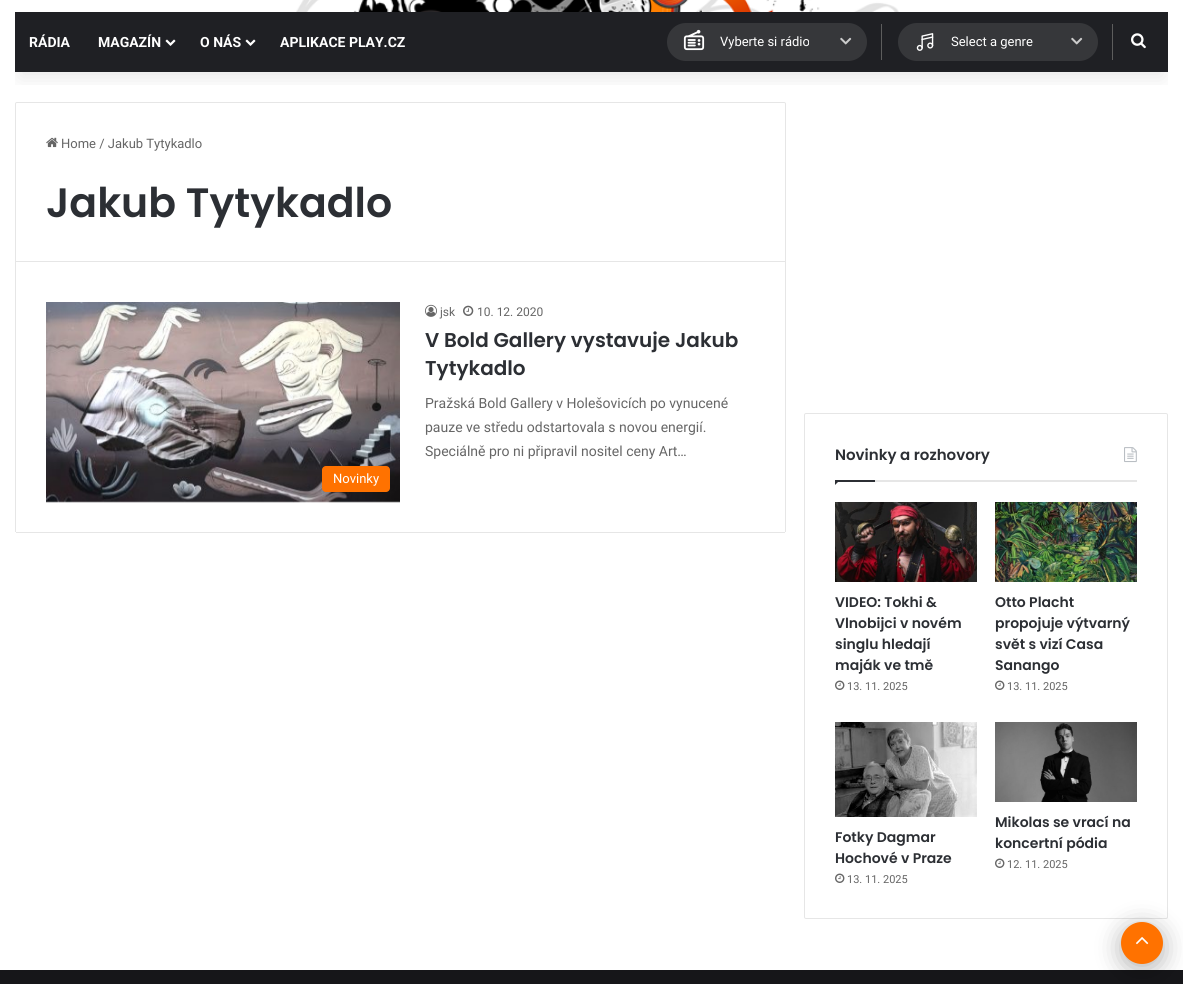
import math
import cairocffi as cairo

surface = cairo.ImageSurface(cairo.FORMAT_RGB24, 1183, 984)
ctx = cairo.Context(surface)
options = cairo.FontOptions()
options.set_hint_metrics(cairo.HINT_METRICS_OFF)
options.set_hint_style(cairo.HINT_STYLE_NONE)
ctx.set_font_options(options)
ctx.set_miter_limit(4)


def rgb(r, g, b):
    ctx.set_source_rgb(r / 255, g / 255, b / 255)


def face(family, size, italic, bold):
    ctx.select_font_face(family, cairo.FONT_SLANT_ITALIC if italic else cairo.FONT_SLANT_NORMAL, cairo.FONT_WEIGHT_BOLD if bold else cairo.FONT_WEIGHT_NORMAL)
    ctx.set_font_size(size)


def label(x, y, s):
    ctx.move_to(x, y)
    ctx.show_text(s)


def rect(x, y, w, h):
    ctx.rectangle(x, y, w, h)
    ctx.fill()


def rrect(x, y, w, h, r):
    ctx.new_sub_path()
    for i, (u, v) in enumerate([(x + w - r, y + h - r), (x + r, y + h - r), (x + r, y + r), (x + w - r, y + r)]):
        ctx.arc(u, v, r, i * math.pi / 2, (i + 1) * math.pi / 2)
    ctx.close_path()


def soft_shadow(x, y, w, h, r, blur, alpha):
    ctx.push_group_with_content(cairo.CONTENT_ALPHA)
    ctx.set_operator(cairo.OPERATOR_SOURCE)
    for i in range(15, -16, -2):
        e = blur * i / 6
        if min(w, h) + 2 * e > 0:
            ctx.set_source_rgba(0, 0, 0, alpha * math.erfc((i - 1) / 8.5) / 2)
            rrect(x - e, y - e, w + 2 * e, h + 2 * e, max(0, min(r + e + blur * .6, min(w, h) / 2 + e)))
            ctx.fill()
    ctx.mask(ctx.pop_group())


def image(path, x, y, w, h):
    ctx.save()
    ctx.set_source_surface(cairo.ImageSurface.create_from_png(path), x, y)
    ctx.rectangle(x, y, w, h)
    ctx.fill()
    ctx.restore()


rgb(255, 255, 255)
ctx.paint()
ctx.new_path()
ctx.move_to(17, 102.5)
ctx.line_to(784, 102.5)
ctx.curve_to(785, 102.5, 785.5, 103, 785.5, 104)
ctx.line_to(785.5, 261.5)
ctx.line_to(15.5, 261.5)
ctx.line_to(15.5, 104)
ctx.curve_to(15.5, 103, 16, 102.5, 17, 102.5)
ctx.close_path()
rgb(230, 230, 230)
ctx.set_line_width(1)
ctx.stroke()
ctx.save()
ctx.rectangle(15, 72, 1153, 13)
ctx.clip()
rgb(0, 0, 0)
soft_shadow(20, -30, 1143, 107, 0, 10, 0.1)
ctx.restore()
image('image0.png', 296, 0, 603, 12)
rgb(31, 32, 36)
rect(15, 12, 1153, 60)
face('Roboto', 14, 0, 1)
rgb(255, 255, 255)
label(29, 47, 'RÁDIA')
label(98, 47, 'MAGAZÍN')
image('image1.png', 165, 39, 11, 7)
label(200, 47, 'O NÁS')
image('image1.png', 245, 39, 11, 7)
label(280, 47, 'APLIKACE PLAY.CZ')
rgb(54, 55, 58)
rrect(667, 23, 200, 38, 19)
ctx.fill()
image('image2.png', 683, 29, 22, 22)
face('Roboto', 13, 0, 0)
rgb(255, 255, 255)
label(720, 46, 'Vyberte si rádio')
image('image3.png', 840, 37, 12, 8)
rgb(93, 93, 93)
rect(881, 24, 1, 36)
rgb(54, 55, 58)
rrect(898, 23, 200, 38, 19)
ctx.fill()
image('image4.png', 916, 33, 18, 18)
rgb(255, 255, 255)
label(951, 46, 'Select a genre')
image('image3.png', 1071, 37, 12, 8)
rgb(93, 93, 93)
rect(1112, 24, 1, 36)
image('image5.png', 1131, 33, 15, 16)
image('image6.png', 46, 137, 12, 11)
rgb(102, 102, 102)
label(61, 148, 'Home / Jakub Tytykadlo')
face('Poppins SemiBold', 41, 0, 0)
rgb(44, 47, 52)
label(46, 217, 'Jakub Tytykadlo')
rgb(230, 230, 230)
rect(785, 262, 1, 270)
rect(16, 532, 769, 1)
rect(15, 262, 1, 270)
image('image7.png', 425, 304, 12, 13)
face('Roboto', 12, 0, 0)
rgb(102, 102, 102)
label(440, 316, 'jsk')
image('image8.png', 463, 305, 11, 11)
label(477, 316, '10. 12. 2020')
face('Poppins SemiBold', 20, 0, 0)
rgb(44, 47, 52)
label(425, 347, 'V Bold Gallery vystavuje Jakub')
label(425, 375, 'Tytykadlo')
face('Roboto', 14, 0, 0)
rgb(102, 102, 102)
label(425, 408, 'Pražská Bold Gallery v Holešovicích po vynucené')
label(425, 432, 'pauze ve středu odstartovala s novou energií.')
label(425, 456, 'Speciálně pro ni připravil nositel ceny Art…')
image('image9.png', 46, 302, 354, 201)
rgb(255, 114, 0)
rrect(322, 466, 68, 26, 4)
ctx.fill()
face('Roboto', 13, 0, 0)
rgb(255, 255, 255)
label(333, 483, 'Novinky')
rrect(804.5, 413.5, 363, 505, 1.5)
rgb(230, 230, 230)
ctx.stroke()
rect(875, 480, 262, 2)
face('Poppins SemiBold', 15, 0, 0)
rgb(44, 47, 52)
label(835, 460, 'Novinky a rozhovory')
image('image10.png', 1124, 447, 13, 16)
ctx.new_path()
ctx.move_to(835, 480)
ctx.line_to(840, 480)
ctx.line_to(835, 485)
ctx.close_path()
ctx.fill()
rect(835, 480, 40, 2)
image('image11.png', 835, 502, 142, 80)
face('Poppins SemiBold', 14, 0, 0)
label(835, 607, 'VIDEO: Tokhi &')
label(835, 628, 'Vlnobijci v novém')
label(835, 649, 'singlu hledají')
label(835, 670, 'maják ve tmě')
image('image12.png', 835, 680, 10, 10)
face('Roboto', 11, 0, 0)
rgb(102, 102, 102)
label(847, 690, '13. 11. 2025')
image('image13.png', 995, 502, 142, 80)
face('Poppins SemiBold', 14, 0, 0)
rgb(44, 47, 52)
label(995, 607, 'Otto Placht')
label(995, 628, 'propojuje výtvarný')
label(995, 649, 'svět s vizí Casa')
label(995, 670, 'Sanango')
image('image12.png', 995, 680, 10, 10)
face('Roboto', 11, 0, 0)
rgb(102, 102, 102)
label(1007, 690, '13. 11. 2025')
image('image14.png', 835, 722, 142, 95)
face('Poppins SemiBold', 14, 0, 0)
rgb(44, 47, 52)
label(835, 842, 'Fotky Dagmar')
label(835, 863, 'Hochové v Praze')
image('image12.png', 835, 873, 10, 10)
face('Roboto', 11, 0, 0)
rgb(102, 102, 102)
label(847, 883, '13. 11. 2025')
image('image15.png', 995, 722, 142, 80)
face('Poppins SemiBold', 14, 0, 0)
rgb(44, 47, 52)
label(995, 827, 'Mikolas se vrací na')
label(995, 848, 'koncertní pódia')
image('image12.png', 995, 858, 10, 10)
face('Roboto', 11, 0, 0)
rgb(102, 102, 102)
label(1007, 868, '12. 11. 2025')
rgb(22, 22, 25)
rect(0, 970, 1183, 14)
rgb(0, 0, 0)
soft_shadow(1121, 927, 42, 42, 21, 12.5, 0.3)
rgb(255, 114, 0)
ctx.arc(1142, 943, 21, 0, 2 * math.pi)
ctx.fill()
image('image16.png', 1136, 937, 13, 8)
surface.write_to_png('render.png')
